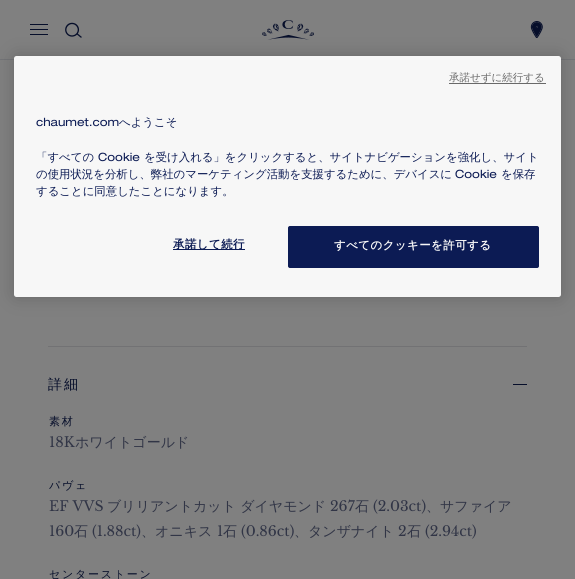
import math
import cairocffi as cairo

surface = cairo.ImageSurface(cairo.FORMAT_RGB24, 575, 579)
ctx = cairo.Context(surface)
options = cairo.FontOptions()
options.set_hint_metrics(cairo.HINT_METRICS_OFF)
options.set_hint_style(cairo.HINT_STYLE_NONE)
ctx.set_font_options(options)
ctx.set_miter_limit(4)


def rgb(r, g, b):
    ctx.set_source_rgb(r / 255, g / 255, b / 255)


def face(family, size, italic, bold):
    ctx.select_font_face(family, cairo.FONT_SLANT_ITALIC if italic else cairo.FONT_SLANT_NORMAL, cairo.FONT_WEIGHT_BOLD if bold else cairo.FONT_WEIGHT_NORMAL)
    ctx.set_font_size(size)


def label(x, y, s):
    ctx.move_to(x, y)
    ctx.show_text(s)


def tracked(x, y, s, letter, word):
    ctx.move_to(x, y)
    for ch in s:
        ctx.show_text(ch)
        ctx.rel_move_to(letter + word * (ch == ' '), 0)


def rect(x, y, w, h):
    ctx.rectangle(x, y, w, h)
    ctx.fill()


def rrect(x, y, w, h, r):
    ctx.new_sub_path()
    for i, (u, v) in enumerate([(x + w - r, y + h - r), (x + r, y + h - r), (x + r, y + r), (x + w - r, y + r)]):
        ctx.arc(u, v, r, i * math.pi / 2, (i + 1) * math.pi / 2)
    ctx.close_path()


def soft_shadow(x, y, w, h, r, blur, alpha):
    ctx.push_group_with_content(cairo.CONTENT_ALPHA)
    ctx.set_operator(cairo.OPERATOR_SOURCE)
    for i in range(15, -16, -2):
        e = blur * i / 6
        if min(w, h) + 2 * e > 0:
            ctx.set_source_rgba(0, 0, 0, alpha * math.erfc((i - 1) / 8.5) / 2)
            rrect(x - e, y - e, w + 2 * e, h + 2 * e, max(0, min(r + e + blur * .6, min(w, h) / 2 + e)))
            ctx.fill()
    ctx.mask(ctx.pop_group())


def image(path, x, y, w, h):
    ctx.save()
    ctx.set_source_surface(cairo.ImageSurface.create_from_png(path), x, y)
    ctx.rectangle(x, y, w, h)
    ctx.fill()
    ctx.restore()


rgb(128, 128, 128)
ctx.paint()
rgb(115, 116, 119)
rect(0, 59, 575, 1)
image('image0.png', 262, 20, 52, 20)
rgb(6, 14, 42)
rect(30, 29, 18, 1)
rect(30, 34, 18, 1)
image('image1.png', 65, 22, 17, 16)
image('image2.png', 530, 21, 13, 17)
rgb(0, 0, 0)
soft_shadow(14, 56, 547, 241, 2.5, 9, 0.2)
rgb(247, 247, 247)
rrect(14, 56, 547, 241, 2.5)
ctx.fill()
rgb(105, 105, 105)
rect(449, 83, 97, 1)
face('WenQuanYi Zen Hei Medium', 10.5, 0, 0)
label(449, 81, '承諾せずに続行する')
face('Helvetica Neue', 11.4, 0, 0)
rgb(12, 27, 84)
label(36, 126, 'chaumet.com')
face('WenQuanYi Zen Hei Medium', 11.4, 0, 0)
label(119, 126, 'へようこそ')
label(36, 161, '「すべての')
face('Helvetica Neue', 11.4, 0, 0)
label(98, 161, 'Cookie')
face('WenQuanYi Zen Hei Medium', 11.4, 0, 0)
label(144, 161, 'を受け入れる」をクリックすると、サイトナビゲーションを強化し、サイト')
label(36, 178, 'の使用状況を分析し、弊社のマーケティング活動を支援するために、デバイスに')
face('Helvetica Neue', 11.4, 0, 0)
label(455, 178, 'Cookie')
face('WenQuanYi Zen Hei Medium', 11.4, 0, 0)
label(501, 178, 'を保存')
label(36, 195, 'することに同意したことになります。')
rect(173, 249, 72, 1)
face('WenQuanYi Zen Hei', 11.4, 0, 1)
tracked(173, 248, '承諾して続行', 0.5, 0)
rrect(288.5, 226.5, 250, 41, 1.5)
ctx.fill_preserve()
ctx.set_line_width(1)
ctx.stroke()
rgb(247, 247, 247)
tracked(334, 249, 'すべてのクッキーを許可する', 0.5, 0)
rgb(6, 14, 42)
rect(30, 24, 18, 1)
rgb(114, 114, 116)
rect(48, 346, 479, 1)
face('WenQuanYi Zen Hei Medium', 14, 0, 0)
rgb(6, 14, 42)
tracked(48, 389, '詳細', 2, 0)
rect(513, 384, 14, 1)
face('WenQuanYi Zen Hei Medium', 11, 0, 0)
tracked(49, 425, '素材', 1.75, 0)
face('Libre Baskerville', 14, 0, 0)
rgb(49, 53, 70)
label(49, 447, '18K')
face('WenQuanYi Zen Hei Medium', 14, 0, 0)
label(75, 447, 'ホワイトゴールド')
face('WenQuanYi Zen Hei Medium', 11, 0, 0)
rgb(6, 14, 42)
tracked(49, 489, 'パヴェ', 1.75, 0)
face('Libre Baskerville', 14, 0, 0)
rgb(49, 53, 70)
label(49, 511, 'EF VVS')
face('WenQuanYi Zen Hei Medium', 14, 0, 0)
label(107, 511, 'ブリリアントカット ダイヤモンド')
face('Libre Baskerville', 14, 0, 0)
label(330, 511, '267')
face('WenQuanYi Zen Hei Medium', 14, 0, 0)
label(355, 511, '石')
face('Libre Baskerville', 14, 0, 0)
label(373, 511, '(2.03ct)')
face('WenQuanYi Zen Hei Medium', 14, 0, 0)
label(426, 511, '、サファイア')
face('Libre Baskerville', 14, 0, 0)
label(49, 536, '160')
face('WenQuanYi Zen Hei Medium', 14, 0, 0)
label(74, 536, '石')
face('Libre Baskerville', 14, 0, 0)
label(92, 536, '(1.88ct)')
face('WenQuanYi Zen Hei Medium', 14, 0, 0)
label(141, 536, '、オニキス')
face('Libre Baskerville', 14, 0, 0)
label(217, 536, '1')
face('WenQuanYi Zen Hei Medium', 14, 0, 0)
label(223, 536, '石')
face('Libre Baskerville', 14, 0, 0)
label(241, 536, '(0.86ct)')
face('WenQuanYi Zen Hei Medium', 14, 0, 0)
label(294, 536, '、タンザナイト')
face('Libre Baskerville', 14, 0, 0)
label(398, 536, '2')
face('WenQuanYi Zen Hei Medium', 14, 0, 0)
label(407, 536, '石')
face('Libre Baskerville', 14, 0, 0)
label(425, 536, '(2.94ct)')
face('WenQuanYi Zen Hei Medium', 11, 0, 0)
rgb(6, 14, 42)
tracked(49, 578, 'センターストーン', 1.75, 0)
surface.write_to_png('render.png')
